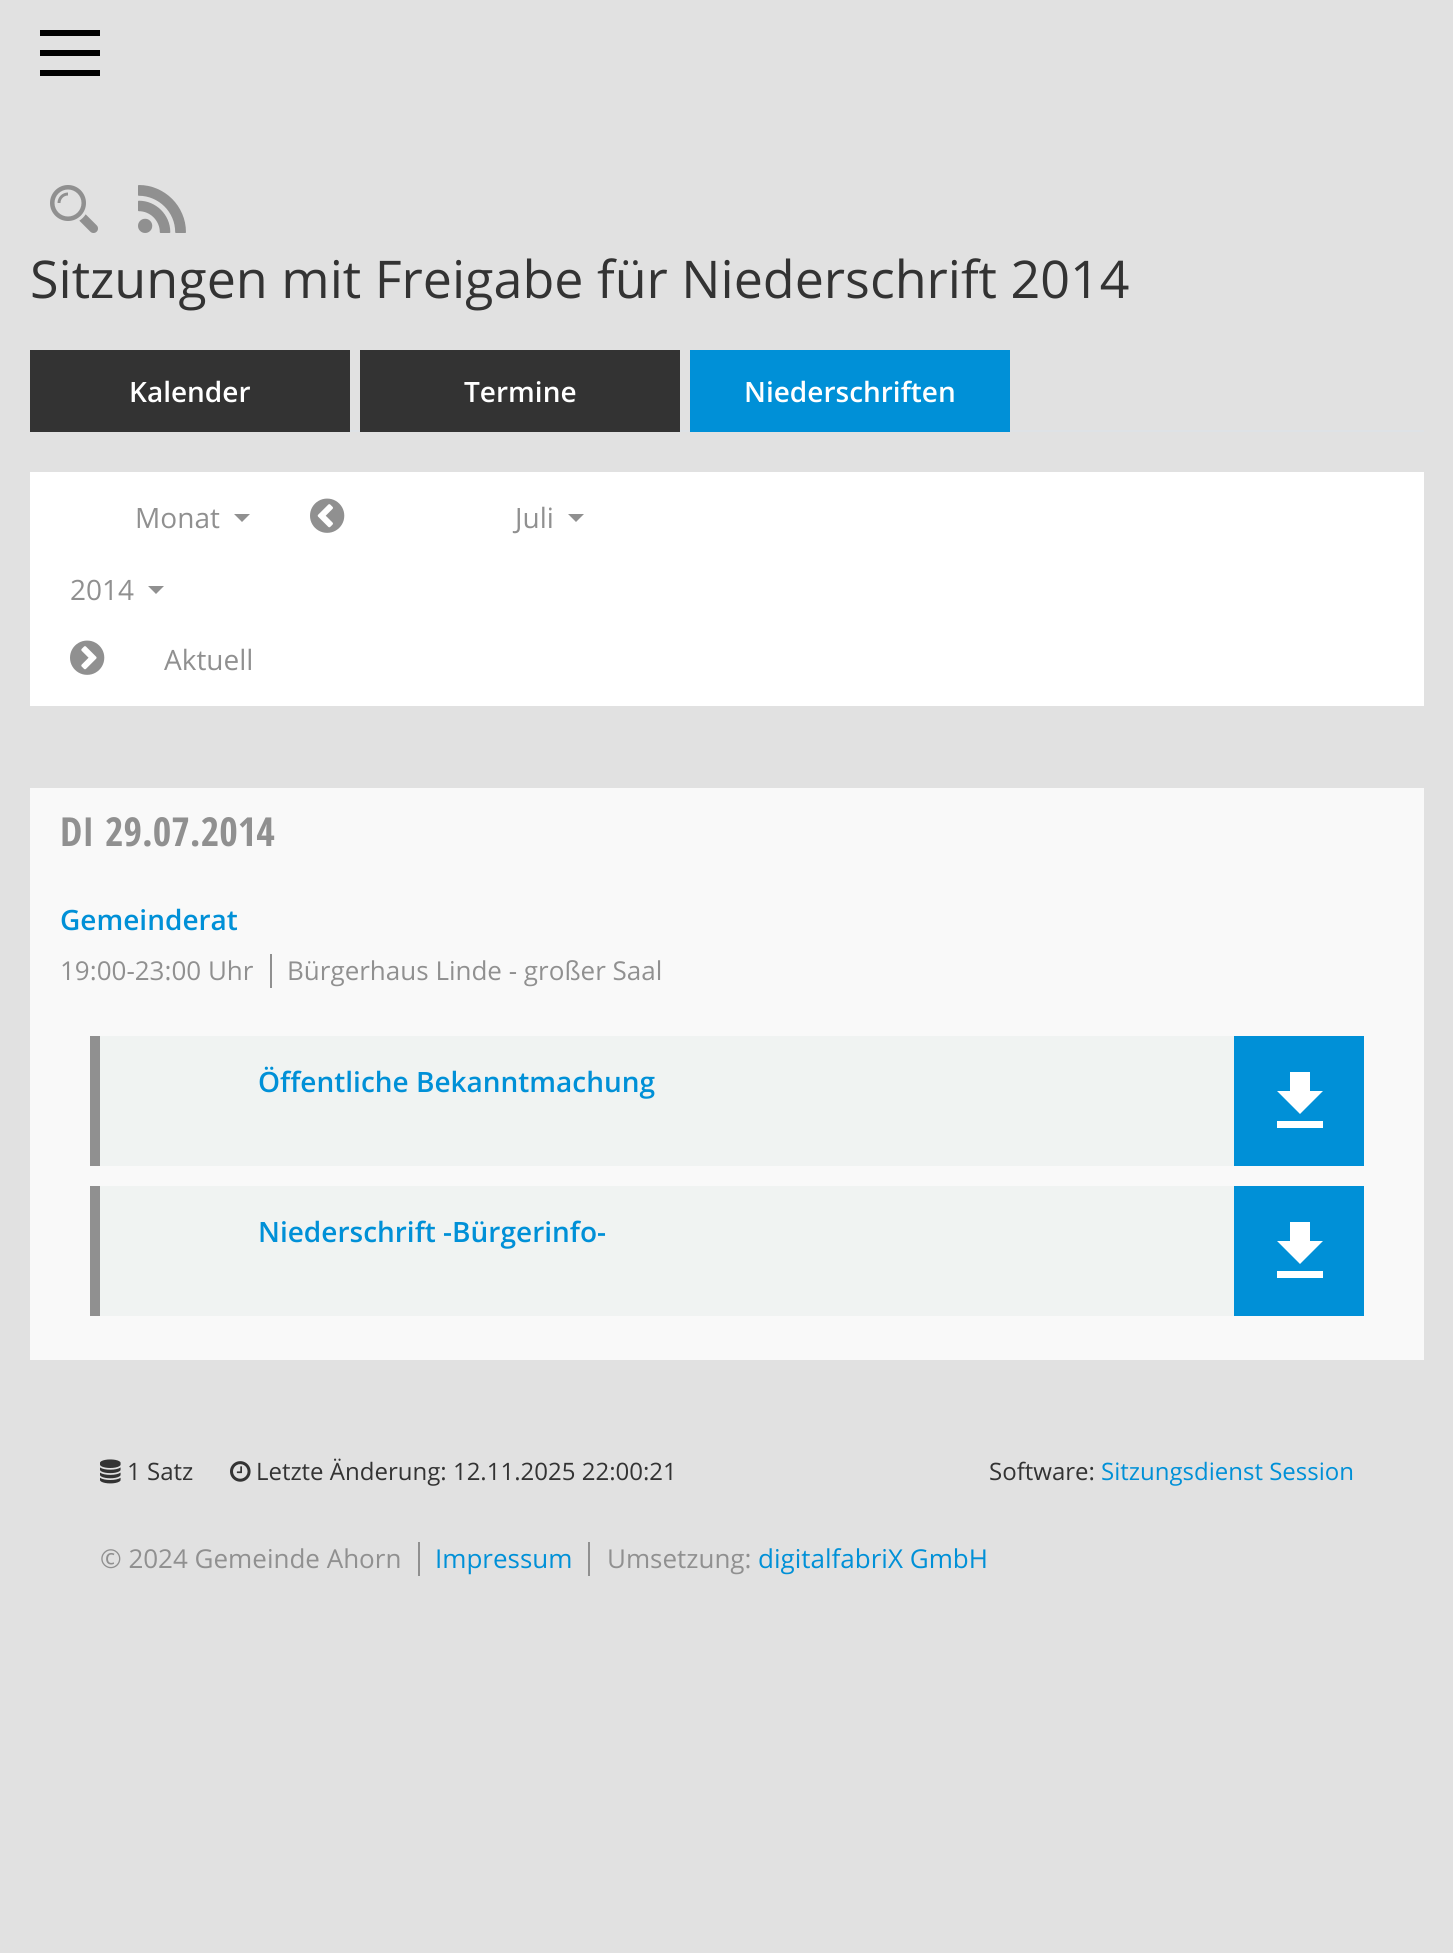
import math
import cairocffi as cairo

surface = cairo.ImageSurface(cairo.FORMAT_RGB24, 1453, 1953)
ctx = cairo.Context(surface)
options = cairo.FontOptions()
options.set_hint_metrics(cairo.HINT_METRICS_OFF)
options.set_hint_style(cairo.HINT_STYLE_NONE)
ctx.set_font_options(options)
ctx.set_miter_limit(4)


def rgb(r, g, b):
    ctx.set_source_rgb(r / 255, g / 255, b / 255)


def face(family, size, italic, bold):
    ctx.select_font_face(family, cairo.FONT_SLANT_ITALIC if italic else cairo.FONT_SLANT_NORMAL, cairo.FONT_WEIGHT_BOLD if bold else cairo.FONT_WEIGHT_NORMAL)
    ctx.set_font_size(size)


def label(x, y, s):
    ctx.move_to(x, y)
    ctx.show_text(s)


def rect(x, y, w, h):
    ctx.rectangle(x, y, w, h)
    ctx.fill()


def image(path, x, y, w, h):
    ctx.save()
    ctx.set_source_surface(cairo.ImageSurface.create_from_png(path), x, y)
    ctx.rectangle(x, y, w, h)
    ctx.fill()
    ctx.restore()


rgb(225, 225, 225)
ctx.paint()
rgb(0, 0, 0)
rect(40, 30, 60, 6)
rect(40, 50, 60, 6)
rect(40, 70, 60, 6)
image('image0.png', 50, 185, 48, 48)
image('image1.png', 138, 185, 48, 48)
face('Open Sans', 52, 0, 0)
rgb(51, 51, 51)
label(30, 298, 'Sitzungen mit Freigabe für Niederschrift 2014')
rgb(222, 226, 230)
rect(350, 430, 1074, 2)
rgb(51, 51, 51)
rect(30, 350, 320, 82)
face('Open Sans SemiBold', 28, 0, 0)
rgb(255, 255, 255)
label(129, 402, 'Kalender')
rgb(51, 51, 51)
rect(360, 350, 320, 82)
rgb(255, 255, 255)
label(464, 402, 'Termine')
rgb(0, 144, 215)
rect(690, 350, 320, 82)
rgb(255, 255, 255)
label(744, 402, 'Niederschriften')
rect(30, 472, 1394, 234)
face('Open Sans', 28, 0, 0)
rgb(144, 144, 144)
label(135, 528, 'Monat')
ctx.new_path()
ctx.move_to(234, 514)
ctx.line_to(250, 514)
ctx.line_to(242, 522)
ctx.close_path()
ctx.fill()
image('image2.png', 310, 498, 35, 35)
label(515, 528, 'Juli')
ctx.new_path()
ctx.move_to(568, 514)
ctx.line_to(584, 514)
ctx.line_to(576, 522)
ctx.close_path()
ctx.fill()
label(70, 600, '2014')
ctx.new_path()
ctx.move_to(148, 586)
ctx.line_to(164, 586)
ctx.line_to(156, 594)
ctx.close_path()
ctx.fill()
image('image3.png', 70, 640, 35, 35)
label(164, 670, 'Aktuell')
rgb(249, 249, 249)
rect(30, 788, 1394, 572)
face('Open Sans Condensed', 40, 0, 1)
rgb(144, 144, 144)
label(60, 846, 'DI')
label(105, 846, '29.07.2014')
face('Open Sans SemiBold', 28, 0, 0)
rgb(0, 144, 215)
label(60, 930, 'Gemeinderat')
face('Open Sans', 26, 0, 0)
rgb(144, 144, 144)
label(60, 980, '19:00-23:00 Uhr')
rect(270, 954, 2, 34)
label(287, 980, 'Bürgerhaus Linde - großer Saal')
rgb(240, 243, 242)
rect(100, 1036, 1134, 130)
rgb(144, 144, 144)
rect(90, 1036, 10, 130)
face('Open Sans SemiBold', 28, 0, 0)
rgb(0, 144, 215)
label(258, 1092, 'Öffentliche Bekanntmachung')
rect(1234, 1036, 130, 130)
rgb(255, 255, 255)
ctx.new_path()
ctx.move_to(1323, 1091)
ctx.line_to(1310, 1091)
ctx.line_to(1310, 1072)
ctx.line_to(1290, 1072)
ctx.line_to(1290, 1091)
ctx.line_to(1277, 1091)
ctx.line_to(1300, 1114)
ctx.close_path()
ctx.move_to(1277, 1121)
ctx.line_to(1277, 1128)
ctx.line_to(1323, 1128)
ctx.line_to(1323, 1121)
ctx.close_path()
ctx.fill()
rgb(240, 243, 242)
rect(100, 1186, 1134, 130)
rgb(144, 144, 144)
rect(90, 1186, 10, 130)
rgb(0, 144, 215)
label(258, 1242, 'Niederschrift -Bürgerinfo-')
rect(1234, 1186, 130, 130)
rgb(255, 255, 255)
ctx.new_path()
ctx.move_to(1323, 1241)
ctx.line_to(1310, 1241)
ctx.line_to(1310, 1222)
ctx.line_to(1290, 1222)
ctx.line_to(1290, 1241)
ctx.line_to(1277, 1241)
ctx.line_to(1300, 1264)
ctx.close_path()
ctx.move_to(1277, 1271)
ctx.line_to(1277, 1278)
ctx.line_to(1323, 1278)
ctx.line_to(1323, 1271)
ctx.close_path()
ctx.fill()
image('image4.png', 100, 1459, 21, 25)
face('Open Sans', 24, 0, 0)
rgb(51, 51, 51)
label(127, 1480, '1 Satz')
image('image5.png', 230, 1461, 21, 21)
label(256, 1480, 'Letzte Änderung: 12.11.2025 22:00:21')
label(989, 1480, 'Software:')
rgb(0, 144, 215)
label(1101, 1480, 'Sitzungsdienst Session')
face('Open Sans', 26, 0, 0)
rgb(144, 144, 144)
label(100, 1568, '© 2024 Gemeinde Ahorn')
rect(418, 1542, 2, 34)
rgb(0, 144, 215)
label(435, 1568, 'Impressum')
rgb(144, 144, 144)
rect(588, 1542, 2, 34)
label(607, 1568, 'Umsetzung:')
rgb(0, 144, 215)
label(758, 1568, 'digitalfabriX GmbH')
surface.write_to_png('render.png')
